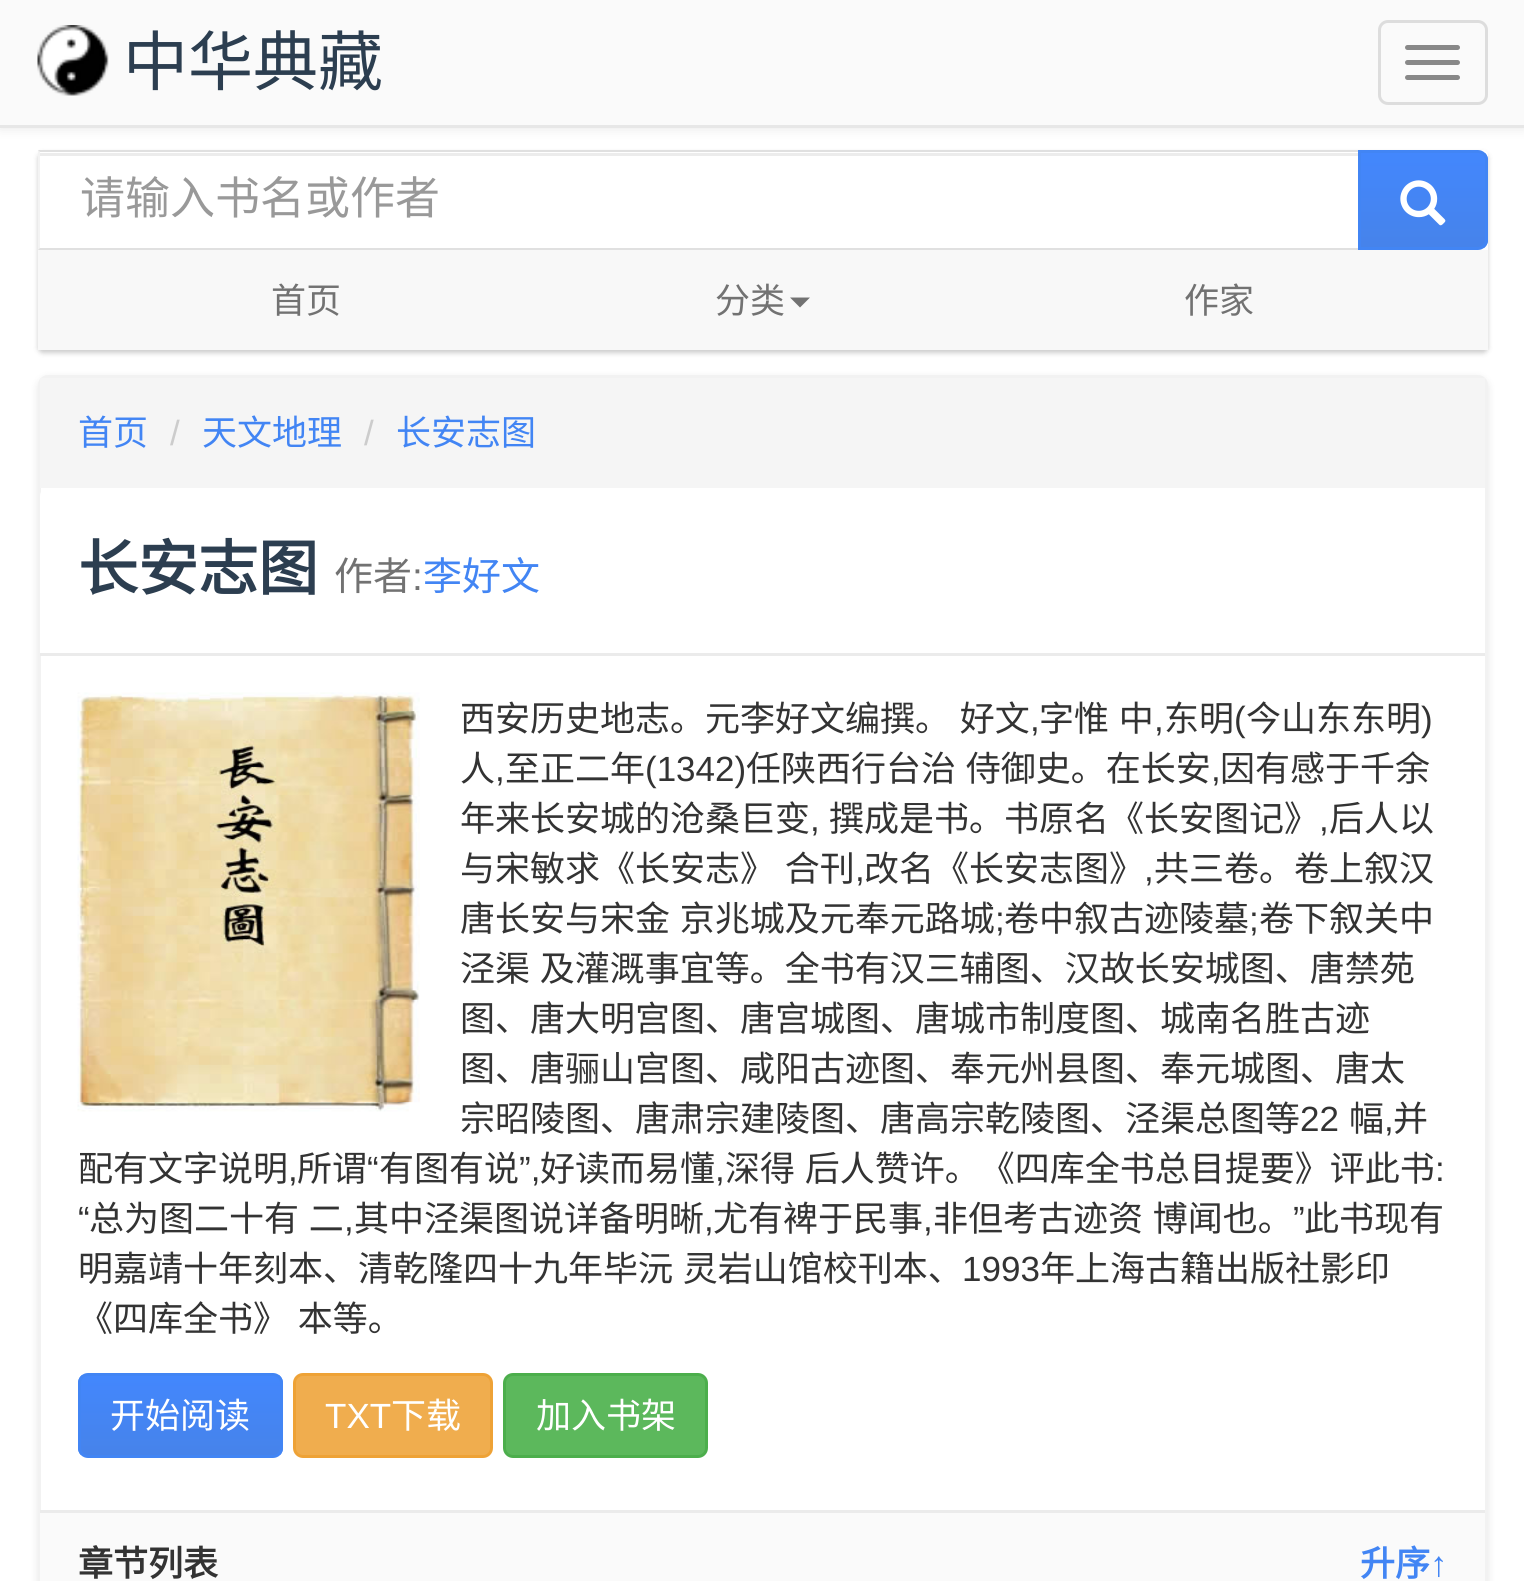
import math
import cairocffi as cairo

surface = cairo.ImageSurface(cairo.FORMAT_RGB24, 1524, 1581)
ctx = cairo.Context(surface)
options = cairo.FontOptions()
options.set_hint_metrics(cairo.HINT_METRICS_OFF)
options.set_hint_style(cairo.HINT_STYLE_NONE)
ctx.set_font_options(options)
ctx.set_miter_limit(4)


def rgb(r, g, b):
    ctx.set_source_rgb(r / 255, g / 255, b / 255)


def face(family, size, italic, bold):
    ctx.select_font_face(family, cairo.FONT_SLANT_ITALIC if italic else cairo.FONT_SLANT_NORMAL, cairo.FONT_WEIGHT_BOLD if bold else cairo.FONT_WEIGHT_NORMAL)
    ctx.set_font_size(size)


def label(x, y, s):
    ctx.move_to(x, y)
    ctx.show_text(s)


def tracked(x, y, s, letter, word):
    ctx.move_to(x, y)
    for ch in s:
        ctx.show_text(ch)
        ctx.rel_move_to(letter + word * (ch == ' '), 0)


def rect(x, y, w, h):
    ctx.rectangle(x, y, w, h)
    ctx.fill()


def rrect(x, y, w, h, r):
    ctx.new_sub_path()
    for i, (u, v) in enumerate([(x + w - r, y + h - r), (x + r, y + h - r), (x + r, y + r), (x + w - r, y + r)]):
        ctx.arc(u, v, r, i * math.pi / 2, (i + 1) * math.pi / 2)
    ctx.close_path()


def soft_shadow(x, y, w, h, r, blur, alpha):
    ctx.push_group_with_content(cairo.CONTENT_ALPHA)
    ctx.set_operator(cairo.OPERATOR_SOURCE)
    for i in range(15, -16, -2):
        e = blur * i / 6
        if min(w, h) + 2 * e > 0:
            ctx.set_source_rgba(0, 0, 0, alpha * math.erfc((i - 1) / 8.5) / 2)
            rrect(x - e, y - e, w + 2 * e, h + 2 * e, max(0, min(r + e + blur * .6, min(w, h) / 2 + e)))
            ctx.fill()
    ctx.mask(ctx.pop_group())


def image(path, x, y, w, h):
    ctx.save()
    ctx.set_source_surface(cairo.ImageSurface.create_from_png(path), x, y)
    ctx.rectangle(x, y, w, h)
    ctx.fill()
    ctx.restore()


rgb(255, 255, 255)
ctx.paint()
rgb(0, 0, 0)
soft_shadow(0, 0, 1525, 128, 0, 6, 0.1)
rgb(250, 250, 250)
rect(0, 0, 1524, 125)
rgb(231, 231, 231)
rect(0, 125, 1524, 3)
image('image0.png', 37, 25, 72, 71)
face('Noto Sans CJK SC', 65, 0, 0)
rgb(44, 62, 80)
label(123, 85, '中华典藏')
rrect(1379.5, 21.5, 107, 82, 8.5)
rgb(221, 221, 221)
ctx.set_line_width(3)
ctx.stroke()
rgb(136, 136, 136)
rrect(1405, 45, 55, 5, 2.5)
ctx.fill()
rrect(1405, 60, 55, 5, 2.5)
ctx.fill()
rrect(1405, 75, 55, 5, 2.5)
ctx.fill()
rgb(0, 0, 0)
soft_shadow(38, 153, 1450, 200, 5, 2.5, 0.2)
rgb(255, 255, 255)
rrect(38, 150, 1450, 200, 5)
ctx.fill()
rect(38, 150, 3, 4)
rgb(236, 236, 236)
rect(40, 153, 1320, 3)
rgb(224, 224, 224)
ctx.new_path()
ctx.move_to(38, 150)
ctx.line_to(1360, 150)
ctx.line_to(1360, 152)
ctx.line_to(40, 152)
ctx.close_path()
ctx.fill()
ctx.new_path()
ctx.move_to(1360, 250)
ctx.line_to(38, 250)
ctx.line_to(40, 248)
ctx.line_to(1360, 248)
ctx.close_path()
ctx.fill()
ctx.set_source_rgba(0, 0, 0, 0.05)
ctx.new_path()
ctx.move_to(38, 250)
ctx.line_to(38, 150)
ctx.line_to(40, 152)
ctx.line_to(40, 248)
ctx.close_path()
ctx.fill()
face('Noto Sans CJK SC', 45, 0, 0)
rgb(153, 153, 153)
label(80, 214, '请输入书名或作者')
ctx.save()
ctx.new_path()
ctx.move_to(1358, 150)
ctx.line_to(1478, 150)
ctx.curve_to(1483.5, 150, 1488, 154.5, 1488, 160)
ctx.line_to(1488, 240)
ctx.curve_to(1488, 245.5, 1483.5, 250, 1478, 250)
ctx.line_to(1358, 250)
ctx.close_path()
ctx.clip()
gradient = cairo.LinearGradient(1423, 153, 1423, 248)
gradient.add_color_stop_rgba(0, 0.263, 0.529, 0.992, 1)
gradient.add_color_stop_rgba(1, 0.275, 0.514, 0.918, 1)
ctx.set_source(gradient)
rect(1361, 153, 127, 95)
ctx.restore()
ctx.new_path()
ctx.move_to(1359.5, 151.5)
ctx.line_to(1478, 151.5)
ctx.curve_to(1482.5, 151.5, 1486.5, 155.5, 1486.5, 160)
ctx.line_to(1486.5, 240)
ctx.curve_to(1486.5, 244.5, 1482.5, 248.5, 1478, 248.5)
ctx.line_to(1359.5, 248.5)
ctx.close_path()
rgb(66, 133, 244)
ctx.stroke()
image('image1.png', 1400, 180, 46, 46)
rgb(248, 248, 248)
rect(38, 250, 1450, 100)
face('Noto Sans CJK SC', 35, 0, 0)
rgb(114, 114, 114)
label(271, 313, '首页')
label(715, 313, '分类')
ctx.new_path()
ctx.move_to(790, 297.5)
ctx.line_to(810, 297.5)
ctx.line_to(800, 307.5)
ctx.close_path()
ctx.fill()
label(1184, 313, '作家')
rgb(0, 0, 0)
soft_shadow(38, 378, 1450, 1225, 10, 4, 0.1)
rgb(255, 255, 255)
rrect(39.5, 376.5, 1447, 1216, 8.5)
ctx.fill_preserve()
rgb(242, 242, 242)
ctx.stroke()
rgb(245, 245, 245)
rect(40, 378, 1445, 110)
rgb(66, 133, 244)
label(78, 445, '首页')
face('Liberation Sans', 35, 0, 0)
rgb(204, 204, 204)
label(170, 445, '/')
face('Noto Sans CJK SC', 35, 0, 0)
rgb(66, 133, 244)
label(202, 445, '天文地理')
face('Liberation Sans', 35, 0, 0)
rgb(204, 204, 204)
label(364, 445, '/')
face('Noto Sans CJK SC', 35, 0, 0)
rgb(66, 133, 244)
label(396, 445, '长安志图')
rgb(255, 255, 255)
ctx.new_path()
ctx.move_to(48, 488)
ctx.line_to(1477, 488)
ctx.curve_to(1481.5, 488, 1485, 491.5, 1485, 496)
ctx.line_to(1485, 655)
ctx.line_to(40, 655)
ctx.line_to(40, 496)
ctx.curve_to(40, 491.5, 43.5, 488, 48, 488)
ctx.close_path()
ctx.fill()
rgb(235, 235, 235)
rect(40, 653, 1445, 3)
face('Noto Sans CJK SC', 60, 0, 1)
rgb(44, 62, 80)
label(78, 590, '长安志图')
face('Noto Sans CJK SC', 39, 0, 0)
rgb(114, 114, 114)
label(334, 590, '作者')
face('Liberation Sans', 39, 0, 0)
label(412, 590, ':')
face('Noto Sans CJK SC', 39, 0, 0)
rgb(66, 133, 244)
label(423, 590, '李好文')
image('image2.png', 77, 692, 343, 420)
face('Noto Sans CJK SC', 35, 0, 0)
rgb(51, 51, 51)
tracked(460, 731, '西安历史地志。元李好文编撰。 好文', 0, 2)
face('Liberation Sans', 35, 0, 0)
label(1030, 731, ',')
face('Noto Sans CJK SC', 35, 0, 0)
tracked(1039, 731, '字惟 中', 0, 2)
face('Liberation Sans', 35, 0, 0)
label(1154, 731, ',')
face('Noto Sans CJK SC', 35, 0, 0)
label(1164, 731, '东明')
face('Liberation Sans', 35, 0, 0)
label(1234, 731, '(')
face('Noto Sans CJK SC', 35, 0, 0)
label(1246, 731, '今山东东明')
face('Liberation Sans', 35, 0, 0)
label(1421, 731, ')')
face('Noto Sans CJK SC', 35, 0, 0)
label(460, 781, '人')
face('Liberation Sans', 35, 0, 0)
label(495, 781, ',')
face('Noto Sans CJK SC', 35, 0, 0)
label(505, 781, '至正二年')
face('Liberation Sans', 35, 0, 0)
label(645, 781, '(1342)')
face('Noto Sans CJK SC', 35, 0, 0)
tracked(746, 781, '任陕西行台治 侍御史。在长安', 0, 2)
face('Liberation Sans', 35, 0, 0)
label(1211, 781, ',')
face('Noto Sans CJK SC', 35, 0, 0)
label(1220, 781, '因有感于千余')
label(460, 831, '年来长安城的沧桑巨变')
face('Liberation Sans', 35, 0, 0)
label(810, 831, ',')
face('Noto Sans CJK SC', 35, 0, 0)
label(829, 831, '撰成是书。书原名《长安图记》')
face('Liberation Sans', 35, 0, 0)
label(1319, 831, ',')
face('Noto Sans CJK SC', 35, 0, 0)
label(1329, 831, '后人以')
tracked(460, 881, '与宋敏求《长安志》 合刊', 0, 2)
face('Liberation Sans', 35, 0, 0)
label(855, 881, ',')
face('Noto Sans CJK SC', 35, 0, 0)
label(864, 881, '改名《长安志图》')
face('Liberation Sans', 35, 0, 0)
label(1144, 881, ',')
face('Noto Sans CJK SC', 35, 0, 0)
label(1154, 881, '共三卷。卷上叙汉')
tracked(460, 931, '唐长安与宋金 京兆城及元奉元路城', 0, 2)
face('Liberation Sans', 35, 0, 0)
label(995, 931, ';')
face('Noto Sans CJK SC', 35, 0, 0)
label(1004, 931, '卷中叙古迹陵墓')
face('Liberation Sans', 35, 0, 0)
label(1249, 931, ';')
face('Noto Sans CJK SC', 35, 0, 0)
label(1259, 931, '卷下叙关中')
tracked(460, 981, '泾渠 及灌溉事宜等。全书有汉三辅图、汉故长安城图、唐禁苑', 0, 2)
label(460, 1031, '图、唐大明宫图、唐宫城图、唐城市制度图、城南名胜古迹')
label(460, 1081, '图、唐骊山宫图、咸阳古迹图、奉元州县图、奉元城图、唐太')
label(460, 1131, '宗昭陵图、唐肃宗建陵图、唐高宗乾陵图、泾渠总图等')
face('Liberation Sans', 35, 0, 0)
label(1300, 1131, '22')
face('Noto Sans CJK SC', 35, 0, 0)
label(1349, 1131, '幅')
face('Liberation Sans', 35, 0, 0)
label(1384, 1131, ',')
face('Noto Sans CJK SC', 35, 0, 0)
label(1393, 1131, '并')
label(78, 1181, '配有文字说明')
face('Liberation Sans', 35, 0, 0)
label(288, 1181, ',')
face('Noto Sans CJK SC', 35, 0, 0)
label(297, 1181, '所谓')
face('Liberation Sans', 35, 0, 0)
label(367, 1181, '“')
face('Noto Sans CJK SC', 35, 0, 0)
label(379, 1181, '有图有说')
face('Liberation Sans', 35, 0, 0)
label(519, 1181, '”,')
face('Noto Sans CJK SC', 35, 0, 0)
label(540, 1181, '好读而易懂')
face('Liberation Sans', 35, 0, 0)
label(715, 1181, ',')
face('Noto Sans CJK SC', 35, 0, 0)
tracked(725, 1181, '深得 后人赞许。《四库全书总目提要》评此书', 0, 2)
face('Liberation Sans', 35, 0, 0)
label(1435, 1181, ':')
label(78, 1231, '“')
face('Noto Sans CJK SC', 35, 0, 0)
tracked(89, 1231, '总为图二十有 二', 0, 2)
label(354, 1231, '其中泾渠图说详备明晰')
label(713, 1231, '尤有裨于民事')
tracked(933, 1231, '非但考古迹资 博闻也。', 0, 2)
face('Liberation Sans', 35, 0, 0)
label(1293, 1231, '”')
face('Noto Sans CJK SC', 35, 0, 0)
label(1304, 1231, '此书现有')
face('Liberation Sans', 35, 0, 0)
label(344, 1231, ',')
label(704, 1231, ',')
label(923, 1231, ',')
face('Noto Sans CJK SC', 35, 0, 0)
tracked(78, 1281, '明嘉靖十年刻本、清乾隆四十九年毕沅 灵岩山馆校刊本、', 0, 2)
face('Liberation Sans', 35, 0, 0)
label(962, 1281, '1993')
face('Noto Sans CJK SC', 35, 0, 0)
label(1040, 1281, '年上海古籍出版社影印')
tracked(78, 1331, '《四库全书》 本等。', 0, 2)
ctx.save()
rrect(78, 1373, 205, 85, 10)
ctx.clip()
gradient = cairo.LinearGradient(180, 1375, 180, 1455)
gradient.add_color_stop_rgba(0, 0.263, 0.529, 0.992, 1)
gradient.add_color_stop_rgba(1, 0.275, 0.514, 0.918, 1)
ctx.set_source(gradient)
rect(78, 1375, 205, 80)
ctx.restore()
rrect(79.5, 1374.5, 202, 82, 8.5)
rgb(66, 133, 244)
ctx.stroke()
rgb(255, 255, 255)
label(110, 1428, '开始阅读')
rgb(240, 173, 78)
rrect(294.5, 1374.5, 197, 82, 8.5)
ctx.fill_preserve()
rgb(238, 162, 54)
ctx.stroke()
face('Liberation Sans', 35, 0, 0)
rgb(255, 255, 255)
label(325, 1428, 'TXT')
face('Noto Sans CJK SC', 35, 0, 0)
label(391, 1428, '下载')
rgb(92, 184, 92)
rrect(504.5, 1374.5, 202, 82, 8.5)
ctx.fill_preserve()
rgb(76, 174, 76)
ctx.stroke()
rgb(255, 255, 255)
label(536, 1428, '加入书架')
rgb(250, 250, 250)
rect(40, 1513, 1445, 68)
rgb(235, 235, 235)
rect(40, 1510, 1445, 3)
face('Noto Sans CJK SC', 35, 0, 1)
rgb(51, 51, 51)
label(78, 1576, '章节列表')
rgb(66, 133, 244)
label(1360, 1576, '升序')
face('Liberation Sans', 35, 0, 1)
label(1430, 1576, '↑')
surface.write_to_png('render.png')
